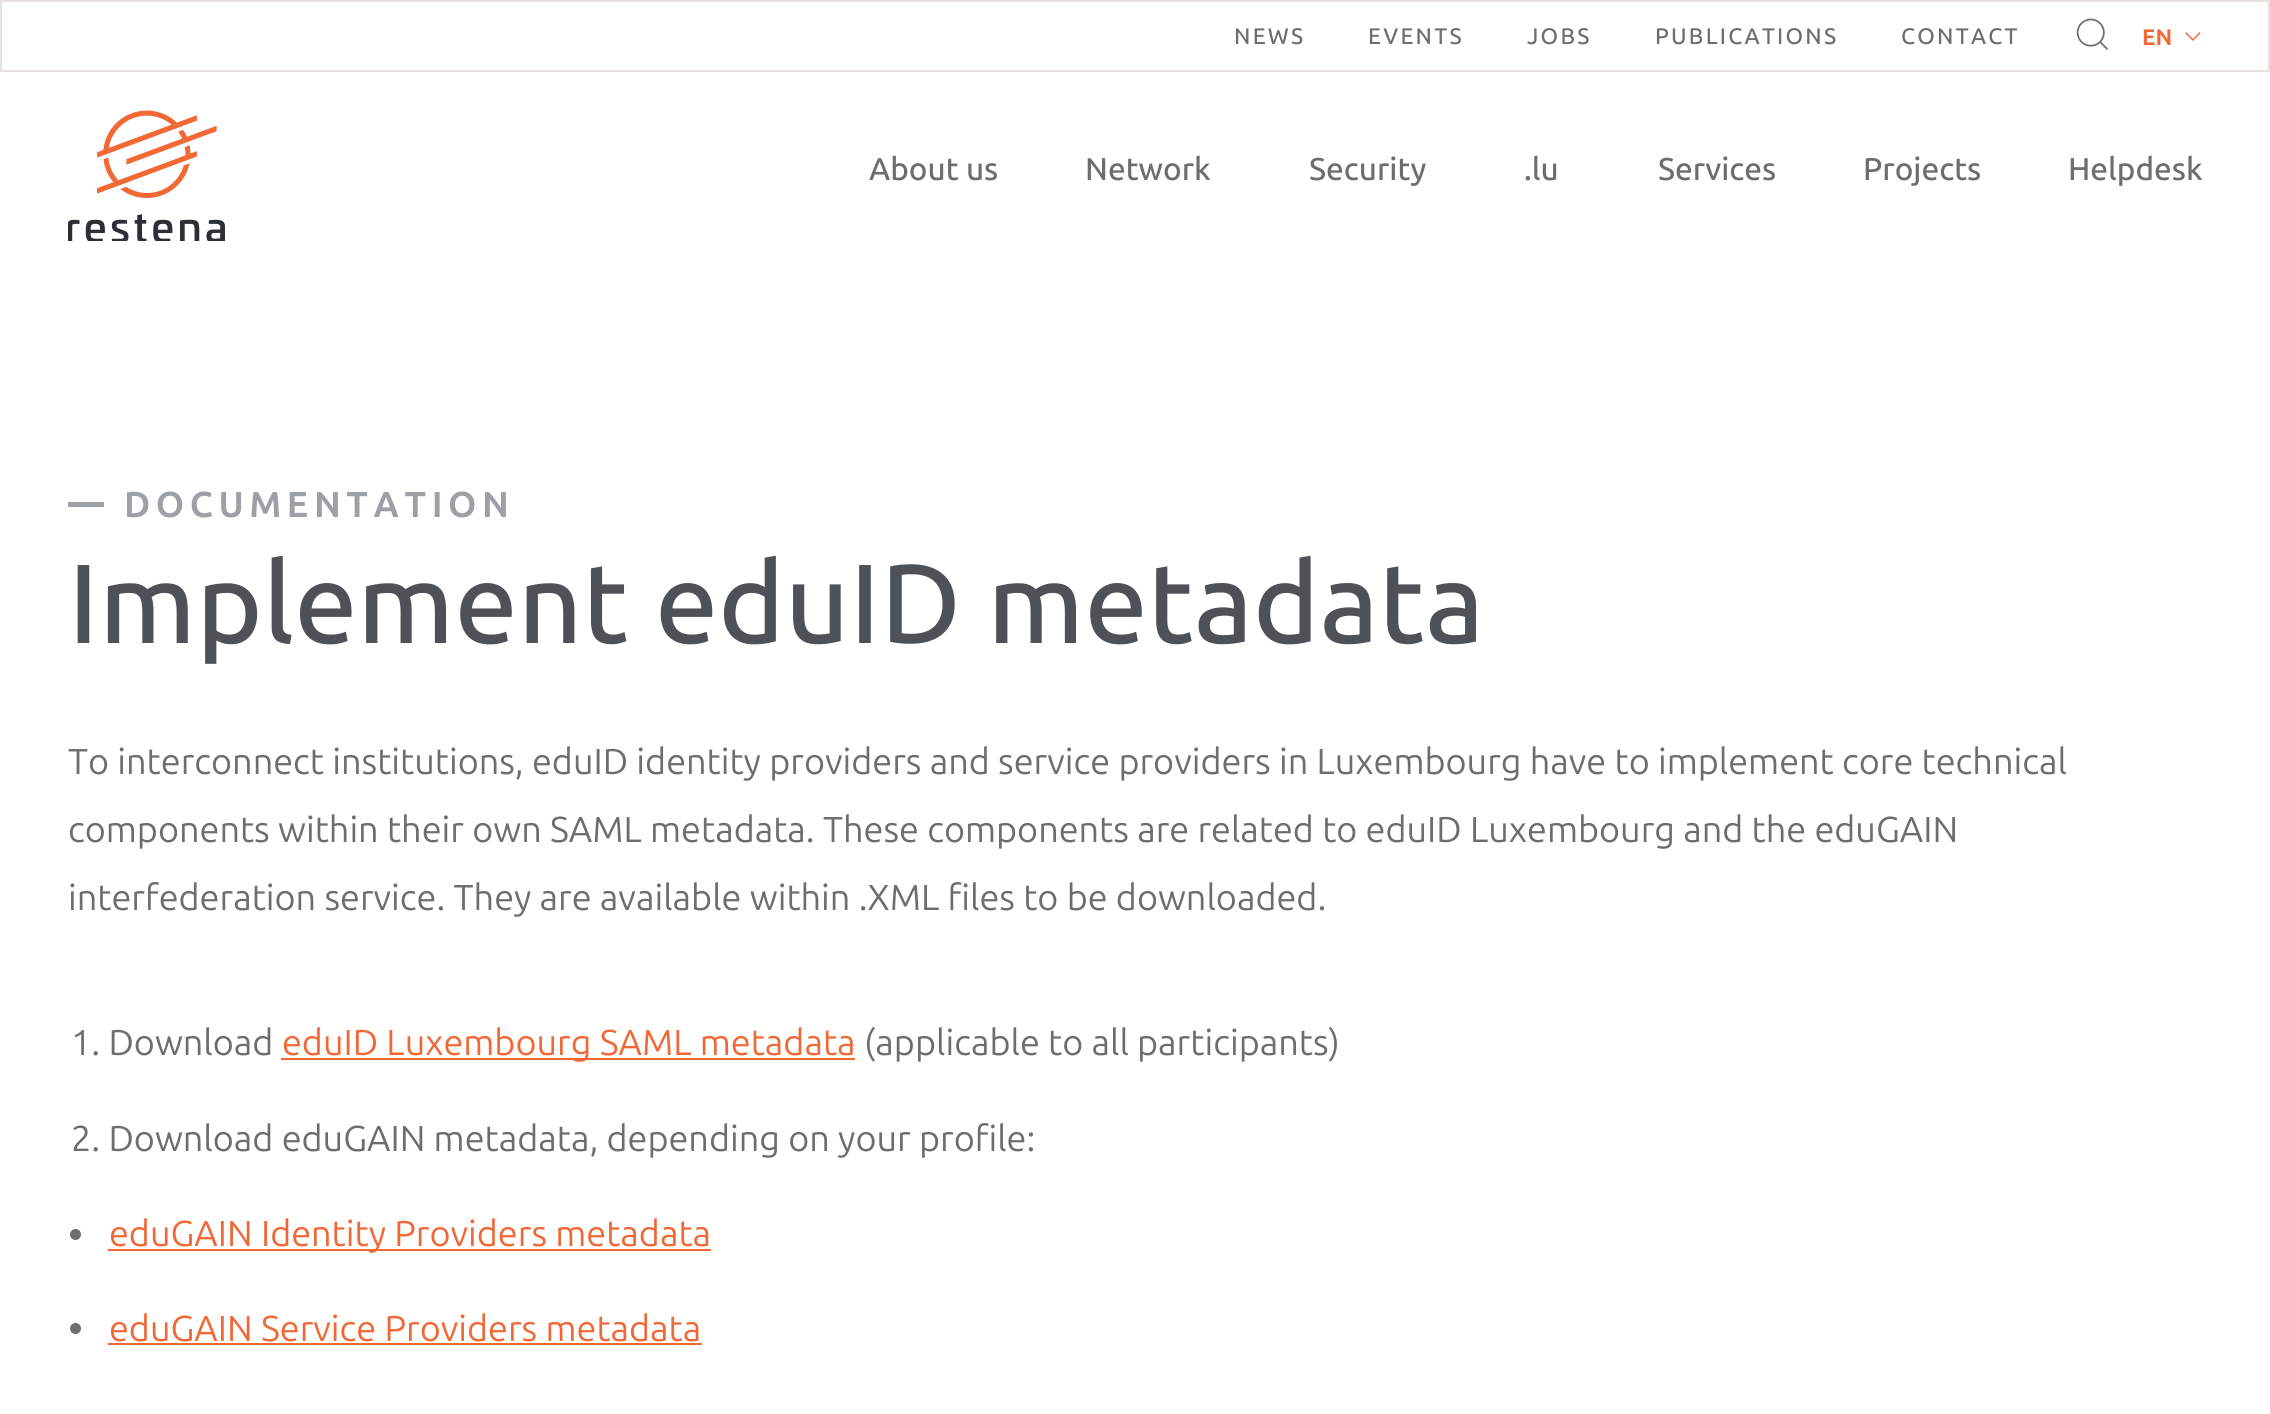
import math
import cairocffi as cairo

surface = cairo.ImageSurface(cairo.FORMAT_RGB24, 2270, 1414)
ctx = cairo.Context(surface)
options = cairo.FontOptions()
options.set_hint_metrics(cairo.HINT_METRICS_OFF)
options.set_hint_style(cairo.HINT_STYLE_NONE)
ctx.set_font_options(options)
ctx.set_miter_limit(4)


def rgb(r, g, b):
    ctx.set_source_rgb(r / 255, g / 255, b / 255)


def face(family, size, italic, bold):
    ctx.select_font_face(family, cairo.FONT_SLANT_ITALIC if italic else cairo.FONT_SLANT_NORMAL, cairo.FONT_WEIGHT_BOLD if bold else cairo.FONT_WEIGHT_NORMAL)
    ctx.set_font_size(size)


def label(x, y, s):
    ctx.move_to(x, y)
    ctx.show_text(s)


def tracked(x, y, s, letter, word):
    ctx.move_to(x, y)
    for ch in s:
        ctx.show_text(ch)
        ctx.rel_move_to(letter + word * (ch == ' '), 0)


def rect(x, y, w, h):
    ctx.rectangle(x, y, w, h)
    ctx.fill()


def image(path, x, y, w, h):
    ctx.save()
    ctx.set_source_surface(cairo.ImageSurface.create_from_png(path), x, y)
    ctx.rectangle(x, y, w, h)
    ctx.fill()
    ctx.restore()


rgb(255, 255, 255)
ctx.paint()
ctx.rectangle(1, 1, 2268, 70)
rgb(231, 226, 224)
ctx.stroke()
face('Ubuntu Medium', 22.5, 0, 0)
rgb(109, 109, 109)
tracked(1234, 44, 'NEWS', 2.25, 0)
tracked(1368, 44, 'EVENTS', 2.25, 0)
tracked(1527, 44, 'JOBS', 2.25, 0)
tracked(1655, 44, 'PUBLICATIONS', 2.25, 0)
tracked(1901, 44, 'CONTACT', 2.25, 0)
image('image0.png', 2076, 18, 33, 32)
face('Ubuntu', 22.5, 0, 1)
rgb(241, 104, 54)
label(2142, 45, 'EN')
image('image1.png', 2185, 32, 16, 9)
image('image2.png', 68, 110, 157, 131)
face('Ubuntu Medium', 31.5, 0, 0)
rgb(109, 109, 109)
label(869, 180, 'About us')
label(1085, 180, 'Network')
label(1309, 180, 'Security')
label(1524, 180, '.lu')
label(1658, 180, 'Services')
label(1863, 180, 'Projects')
label(2068, 180, 'Helpdesk')
rgb(157, 160, 165)
rect(68, 502, 36, 5)
face('Ubuntu', 36, 0, 1)
tracked(124, 517, 'DOCUMENTATION', 5.6, 0)
face('Ubuntu Medium', 112.5, 0, 0)
rgb(78, 82, 87)
label(68, 643, 'Implement eduID metadata')
face('Ubuntu', 36, 0, 0)
rgb(109, 109, 109)
label(68, 774, 'To interconnect institutions, eduID identity providers and service providers in Luxembourg have to implement core technical')
label(68, 842, 'components within their own SAML metadata. These components are related to eduID Luxembourg and the eduGAIN')
label(68, 910, 'interfederation service. They are available within .XML files to be downloaded.')
label(71, 1055, '1. Download')
rgb(241, 104, 54)
rect(281, 1058, 574, 2)
label(282, 1055, 'eduID Luxembourg SAML metadata')
rgb(109, 109, 109)
label(864, 1055, '(applicable to all participants)')
label(71, 1151, '2. Download eduGAIN metadata, depending on your profile:')
ctx.new_path()
ctx.arc(75.5, 1234.5, 5.5, 0, 2 * math.pi)
ctx.fill()
rgb(241, 104, 54)
rect(108, 1249, 603, 2)
label(109, 1246, 'eduGAIN Identity Providers metadata')
rgb(109, 109, 109)
ctx.new_path()
ctx.arc(75.5, 1328.5, 5.5, 0, 2 * math.pi)
ctx.fill()
rgb(241, 104, 54)
label(109, 1341, 'eduGAIN Service Providers metadata')
rect(108, 1343, 594, 2)
surface.write_to_png('render.png')
